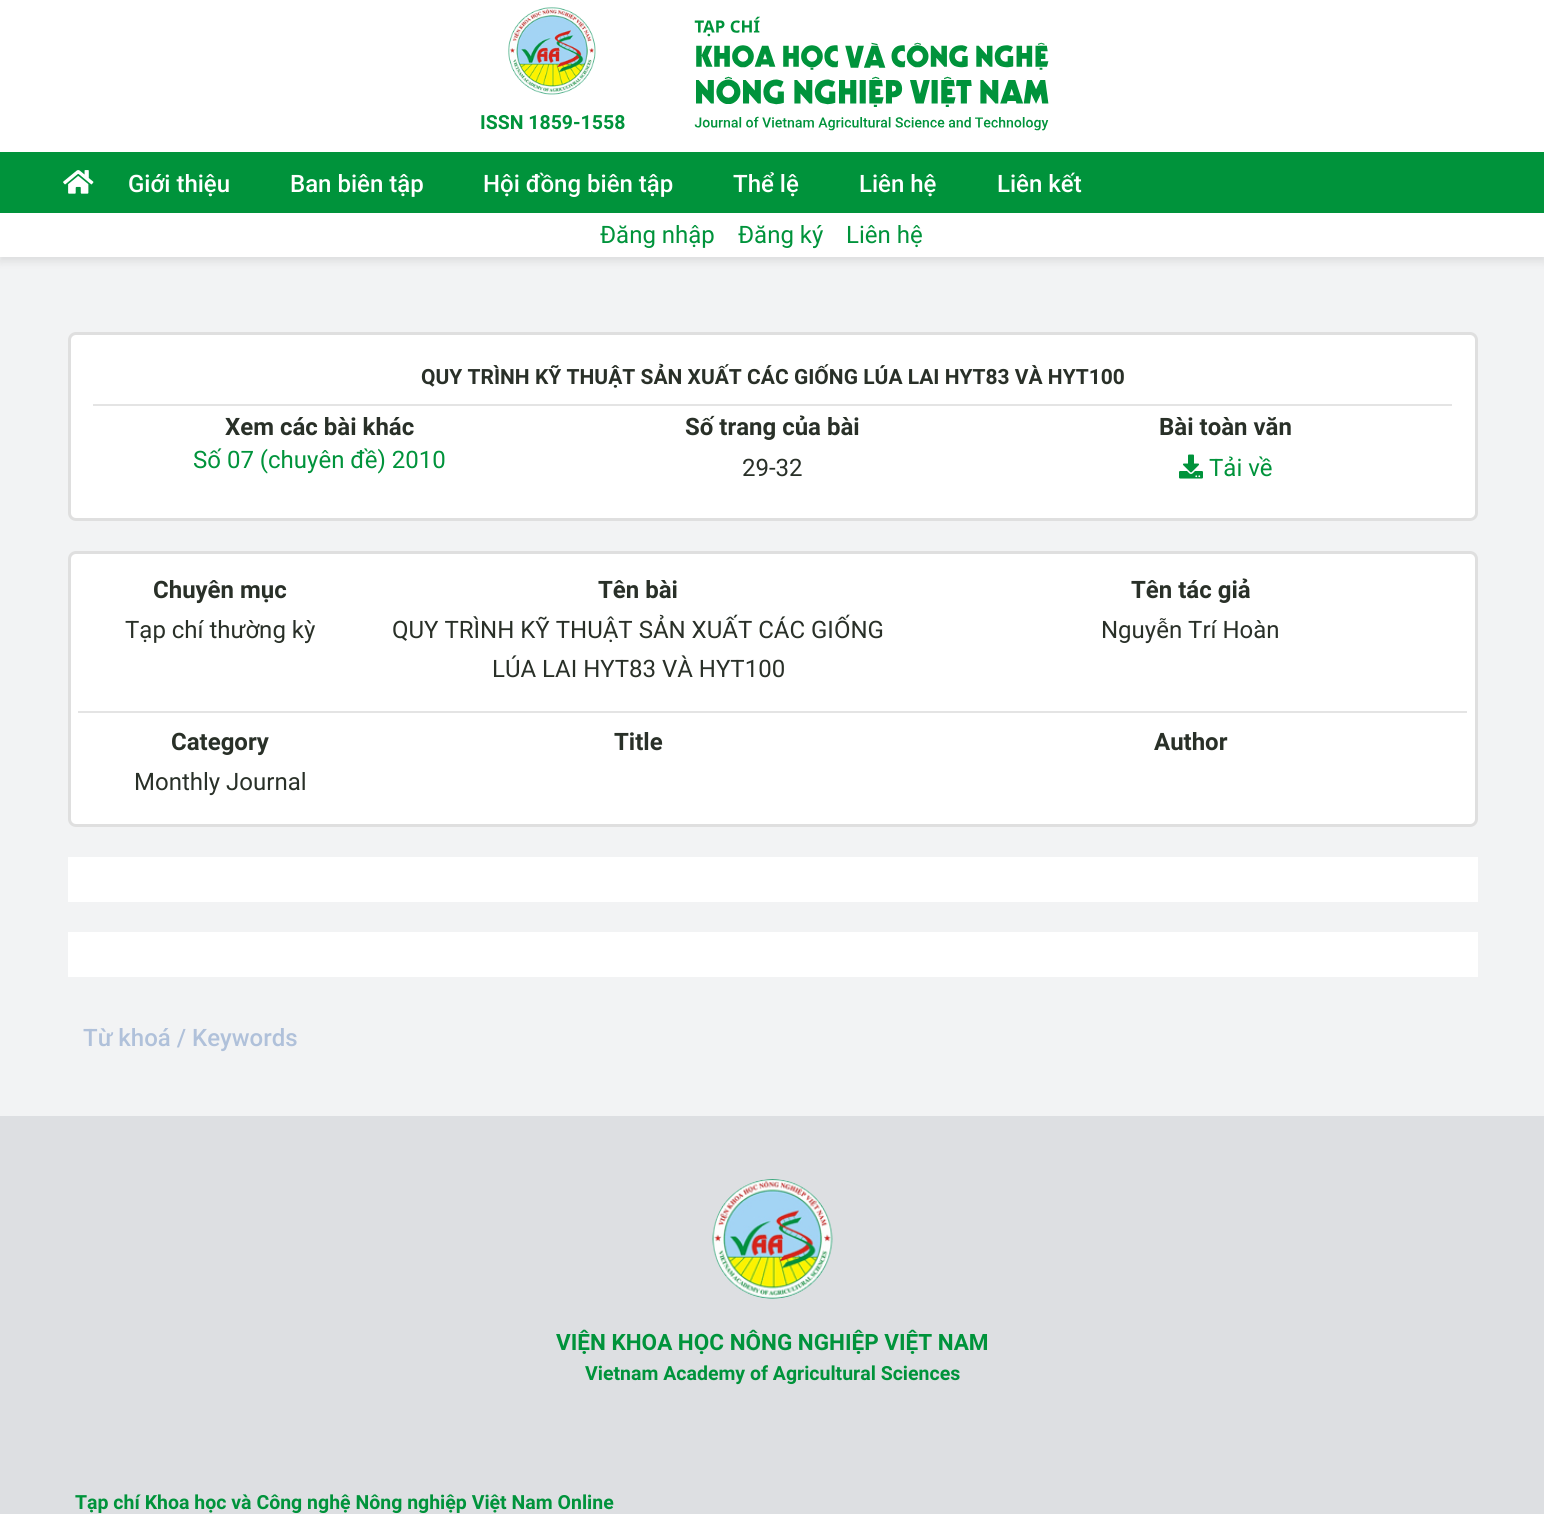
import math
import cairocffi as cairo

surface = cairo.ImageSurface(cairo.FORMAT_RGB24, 1544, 1514)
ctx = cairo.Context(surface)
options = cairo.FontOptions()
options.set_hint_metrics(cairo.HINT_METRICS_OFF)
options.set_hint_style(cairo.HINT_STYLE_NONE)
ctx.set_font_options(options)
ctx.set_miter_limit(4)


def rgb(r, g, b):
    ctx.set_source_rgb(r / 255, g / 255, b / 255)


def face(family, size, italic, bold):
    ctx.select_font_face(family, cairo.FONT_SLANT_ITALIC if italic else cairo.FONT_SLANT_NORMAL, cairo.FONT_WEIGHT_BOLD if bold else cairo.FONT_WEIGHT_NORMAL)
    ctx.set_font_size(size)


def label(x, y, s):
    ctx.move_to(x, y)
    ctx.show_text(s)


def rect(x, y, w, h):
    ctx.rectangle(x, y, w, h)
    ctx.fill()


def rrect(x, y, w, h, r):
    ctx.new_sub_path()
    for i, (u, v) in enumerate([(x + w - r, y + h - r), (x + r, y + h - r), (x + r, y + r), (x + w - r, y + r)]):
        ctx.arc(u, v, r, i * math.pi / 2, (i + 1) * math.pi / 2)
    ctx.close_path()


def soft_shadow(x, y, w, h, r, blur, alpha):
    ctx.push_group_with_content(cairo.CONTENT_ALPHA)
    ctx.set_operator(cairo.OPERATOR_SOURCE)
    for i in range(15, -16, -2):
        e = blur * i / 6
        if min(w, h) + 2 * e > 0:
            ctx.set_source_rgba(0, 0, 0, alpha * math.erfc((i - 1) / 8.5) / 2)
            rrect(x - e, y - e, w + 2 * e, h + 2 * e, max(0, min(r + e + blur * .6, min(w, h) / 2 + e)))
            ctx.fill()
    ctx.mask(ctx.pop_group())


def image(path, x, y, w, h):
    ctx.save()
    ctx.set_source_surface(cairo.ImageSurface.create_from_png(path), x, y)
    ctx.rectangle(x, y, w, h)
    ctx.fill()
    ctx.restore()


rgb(242, 243, 244)
ctx.paint()
rgb(0, 0, 0)
soft_shadow(0, 5, 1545, 256, 0, 4.5, 0.1)
rgb(255, 255, 255)
rect(0, 0, 1544, 257)
image('image0.png', 508, 7, 88, 88)
face('Roboto', 19.5, 0, 1)
rgb(0, 147, 59)
label(480, 129, 'ISSN 1859-1558')
image('image1.png', 694, 16, 355, 115)
rect(0, 152, 1544, 61)
image('image2.png', 63, 170, 31, 24)
face('Roboto Medium', 24, 0, 0)
rgb(255, 255, 255)
label(128, 192, 'Giới thiệu')
label(290, 192, 'Ban biên tập')
label(483, 192, 'Hội đồng biên tập')
label(733, 192, 'Thể lệ')
label(859, 192, 'Liên hệ')
label(997, 192, 'Liên kết')
face('Roboto', 24, 0, 0)
rgb(0, 147, 59)
label(600, 243, 'Đăng nhập')
label(738, 243, 'Đăng ký')
label(846, 243, 'Liên hệ')
rgb(255, 255, 255)
rrect(69.5, 333.5, 1407, 186, 6.5)
ctx.fill_preserve()
rgb(223, 223, 223)
ctx.set_line_width(3)
ctx.stroke()
rgb(228, 228, 228)
rect(93, 404, 1359, 2)
face('Roboto', 21, 0, 1)
rgb(41, 48, 40)
label(421, 384, 'QUY TRÌNH KỸ THUẬT SẢN XUẤT CÁC GIỐNG LÚA LAI HYT83 VÀ HYT100')
face('Roboto', 24, 0, 1)
label(225, 435, 'Xem các bài khác')
face('Roboto', 24, 0, 0)
rgb(0, 147, 59)
label(193, 468, 'Số 07 (chuyên đề) 2010')
face('Roboto', 24, 0, 1)
rgb(41, 48, 40)
label(685, 435, 'Số trang của bài')
face('Roboto', 24, 0, 0)
label(742, 476, '29-32')
face('Roboto', 24, 0, 1)
label(1159, 435, 'Bài toàn văn')
image('image3.png', 1179, 454, 24, 25)
face('Roboto', 24, 0, 0)
rgb(0, 147, 59)
label(1209, 476, 'Tải về')
rgb(255, 255, 255)
rrect(69.5, 552.5, 1407, 273, 6.5)
ctx.fill_preserve()
rgb(223, 223, 223)
ctx.stroke()
face('Roboto', 24, 0, 1)
rgb(41, 48, 40)
label(153, 598, 'Chuyên mục')
face('Roboto', 24, 0, 0)
label(125, 638, 'Tạp chí thường kỳ')
face('Roboto', 24, 0, 1)
label(598, 598, 'Tên bài')
face('Roboto', 24, 0, 0)
label(392, 638, 'QUY TRÌNH KỸ THUẬT SẢN XUẤT CÁC GIỐNG')
label(492, 677, 'LÚA LAI HYT83 VÀ HYT100')
face('Roboto', 24, 0, 1)
label(1131, 598, 'Tên tác giả')
face('Roboto', 24, 0, 0)
label(1101, 638, 'Nguyễn Trí Hoàn')
rgb(228, 228, 228)
rect(78, 711, 1389, 2)
face('Roboto', 24, 0, 1)
rgb(41, 48, 40)
label(171, 750, 'Category')
face('Roboto', 24, 0, 0)
label(134, 790, 'Monthly Journal')
face('Roboto', 24, 0, 1)
label(614, 750, 'Title')
label(1154, 750, 'Author')
rgb(255, 255, 255)
rect(68, 857, 1410, 45)
rect(68, 932, 1410, 45)
face('Roboto Medium', 24, 0, 0)
rgb(176, 193, 218)
label(83, 1046, 'Từ khoá / Keywords')
rgb(221, 223, 226)
rect(0, 1116, 1544, 398)
image('image4.png', 712, 1179, 121, 120)
face('Roboto', 22.5, 0, 1)
rgb(0, 147, 59)
label(556, 1350, 'VIỆN KHOA HỌC NÔNG NGHIỆP VIỆT NAM')
face('Roboto', 19.5, 0, 1)
label(585, 1380, 'Vietnam Academy of Agricultural Sciences')
label(75, 1509, 'Tạp chí Khoa học và Công nghệ Nông nghiệp Việt Nam Online')
surface.write_to_png('render.png')
